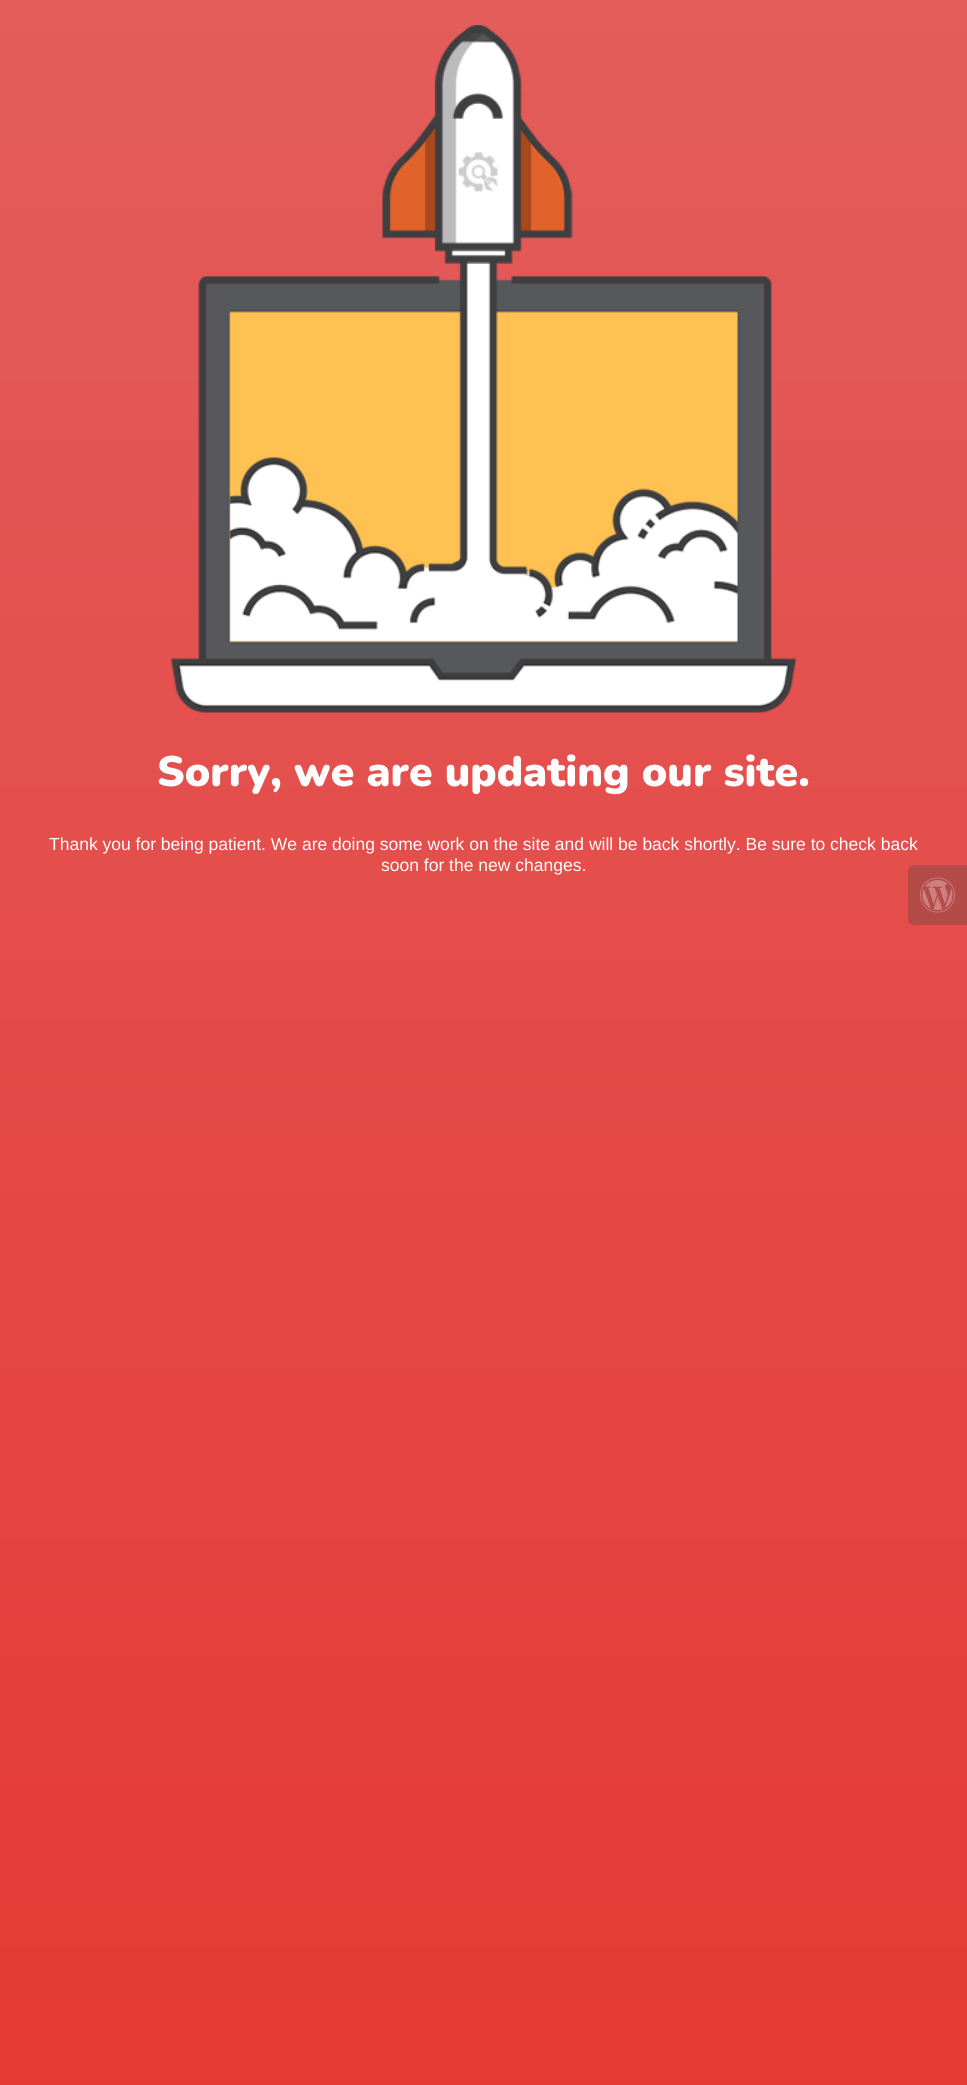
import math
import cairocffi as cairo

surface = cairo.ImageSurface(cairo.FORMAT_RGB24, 967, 2085)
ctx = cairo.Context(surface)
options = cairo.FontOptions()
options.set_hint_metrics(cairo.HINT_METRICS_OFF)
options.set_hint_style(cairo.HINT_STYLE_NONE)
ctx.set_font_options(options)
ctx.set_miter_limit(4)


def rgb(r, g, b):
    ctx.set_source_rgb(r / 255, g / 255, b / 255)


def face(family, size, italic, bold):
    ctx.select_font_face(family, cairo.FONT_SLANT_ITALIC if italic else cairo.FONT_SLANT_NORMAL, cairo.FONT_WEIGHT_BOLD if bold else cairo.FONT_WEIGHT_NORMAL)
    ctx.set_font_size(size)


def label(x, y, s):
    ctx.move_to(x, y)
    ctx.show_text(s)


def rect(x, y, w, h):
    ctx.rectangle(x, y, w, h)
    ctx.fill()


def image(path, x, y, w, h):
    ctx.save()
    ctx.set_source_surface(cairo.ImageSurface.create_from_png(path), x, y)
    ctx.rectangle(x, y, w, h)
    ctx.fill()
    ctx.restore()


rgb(255, 255, 255)
ctx.paint()
gradient = cairo.LinearGradient(484, 0, 484, 2085)
gradient.add_color_stop_rgba(0, 0.89, 0.365, 0.357, 1)
gradient.add_color_stop_rgba(1, 0.898, 0.224, 0.208, 1)
ctx.set_source(gradient)
rect(0, 0, 967, 2085)
image('image0.png', 171, 25, 626, 688)
face('Nunito ExtraLight', 42.5, 0, 0)
rgb(254, 254, 254)
label(157, 786, 'Sorry, we are updating our site.')
face('Liberation Sans', 17.5, 0, 0)
label(49, 850, 'Thank you for being patient. We are doing some work on the site and will be back shortly. Be sure to check back')
label(381, 871, 'soon for the new changes.')
rgb(181, 75, 73)
ctx.new_path()
ctx.move_to(914, 865)
ctx.line_to(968, 865)
ctx.line_to(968, 925)
ctx.line_to(914, 925)
ctx.curve_to(910.5, 925, 908, 922.5, 908, 919)
ctx.line_to(908, 871)
ctx.curve_to(908, 867.5, 910.5, 865, 914, 865)
ctx.close_path()
ctx.fill()
image('image1.png', 920, 877, 35, 36)
surface.write_to_png('render.png')
